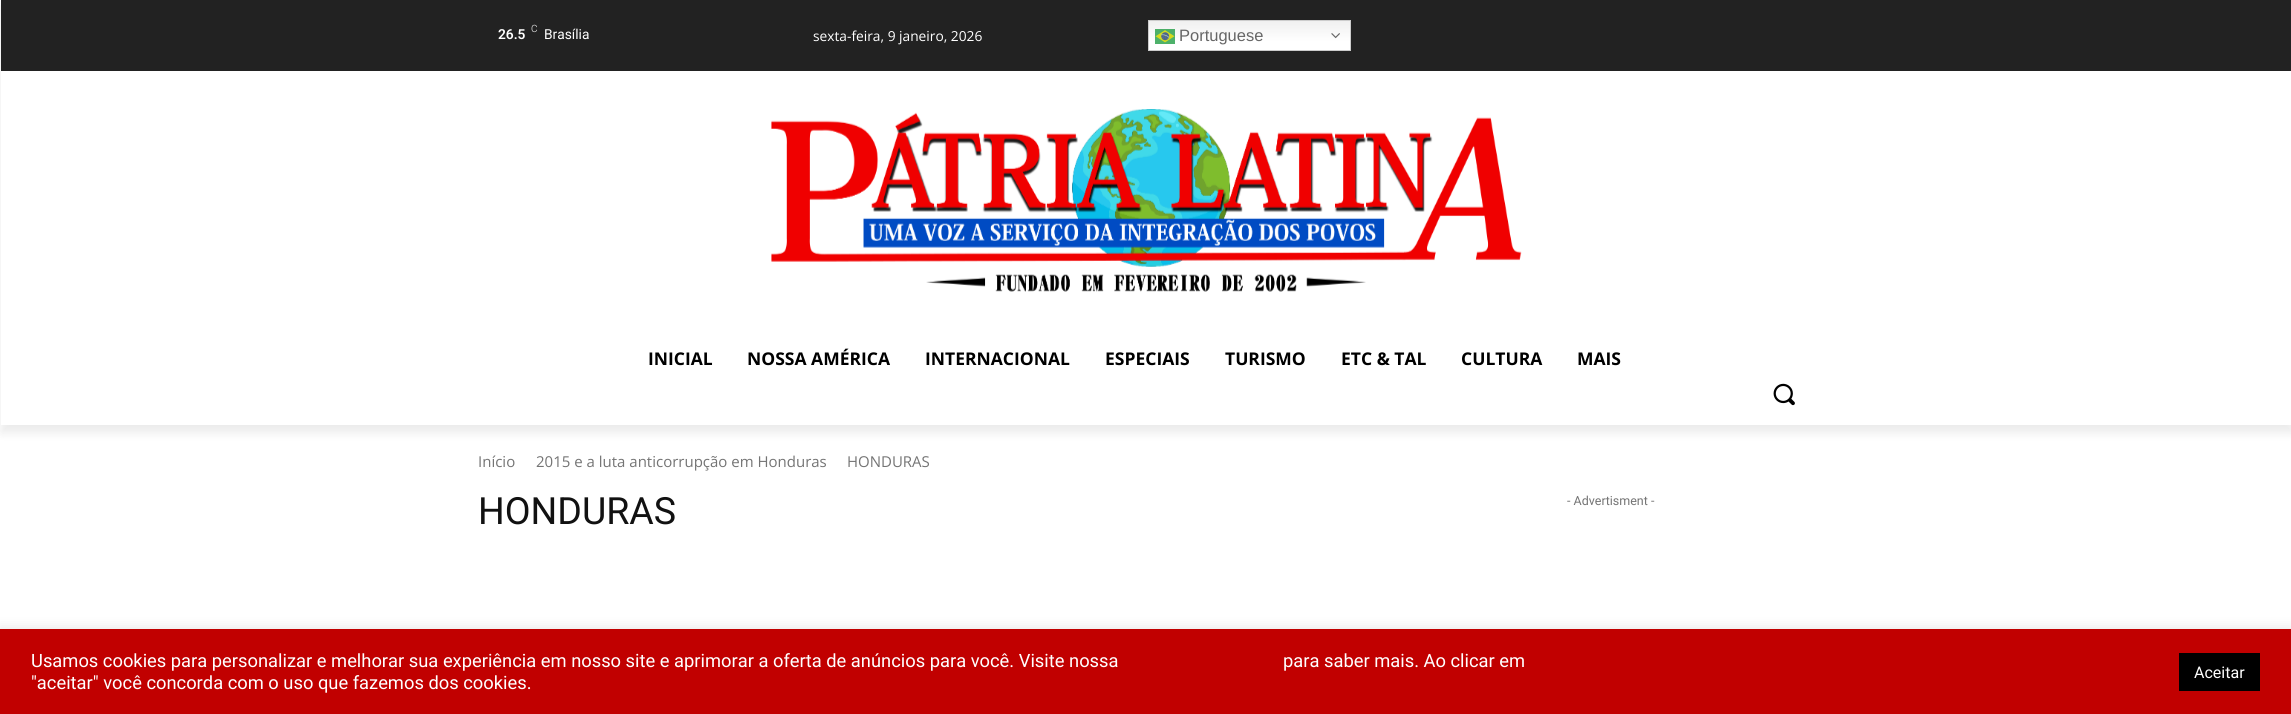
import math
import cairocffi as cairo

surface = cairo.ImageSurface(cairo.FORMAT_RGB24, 2291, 714)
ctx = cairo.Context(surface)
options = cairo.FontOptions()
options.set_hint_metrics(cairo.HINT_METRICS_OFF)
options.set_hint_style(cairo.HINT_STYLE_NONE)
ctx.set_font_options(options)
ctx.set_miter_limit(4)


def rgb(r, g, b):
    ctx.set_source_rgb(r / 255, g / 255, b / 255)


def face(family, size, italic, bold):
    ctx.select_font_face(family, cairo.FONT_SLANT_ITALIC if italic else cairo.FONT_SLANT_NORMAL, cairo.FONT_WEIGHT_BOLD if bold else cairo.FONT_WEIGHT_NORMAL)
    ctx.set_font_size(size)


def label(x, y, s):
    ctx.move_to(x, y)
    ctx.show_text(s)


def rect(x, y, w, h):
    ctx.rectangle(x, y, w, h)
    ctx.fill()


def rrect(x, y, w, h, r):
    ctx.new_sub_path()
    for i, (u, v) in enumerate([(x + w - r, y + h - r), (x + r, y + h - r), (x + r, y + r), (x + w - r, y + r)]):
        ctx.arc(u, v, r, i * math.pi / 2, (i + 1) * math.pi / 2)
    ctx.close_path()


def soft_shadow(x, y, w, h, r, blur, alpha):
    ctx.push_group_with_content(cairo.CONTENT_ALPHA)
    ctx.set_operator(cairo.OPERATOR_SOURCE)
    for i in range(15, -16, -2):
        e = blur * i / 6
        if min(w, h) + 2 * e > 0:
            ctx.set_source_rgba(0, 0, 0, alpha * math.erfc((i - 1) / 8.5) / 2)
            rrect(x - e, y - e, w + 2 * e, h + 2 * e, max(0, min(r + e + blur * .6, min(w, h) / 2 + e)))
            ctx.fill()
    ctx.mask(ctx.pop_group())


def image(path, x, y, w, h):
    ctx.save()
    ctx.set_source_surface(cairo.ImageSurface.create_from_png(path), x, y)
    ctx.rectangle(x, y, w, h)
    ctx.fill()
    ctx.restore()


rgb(255, 255, 255)
ctx.paint()
rgb(34, 34, 34)
rect(1, 0, 2290, 71)
gradient = cairo.LinearGradient(1249, 20, 1249, 51)
gradient.add_color_stop_rgba(0, 0.937, 0.937, 0.937, 1)
gradient.add_color_stop_rgba(0.7, 1, 1, 1, 1)
ctx.set_source(gradient)
rect(1149, 21, 201, 29)
ctx.rectangle(1148.5, 20.5, 202, 30)
rgb(204, 204, 204)
ctx.set_line_width(1)
ctx.stroke()
image('image0.png', 1155, 29, 20, 15)
image('image1.png', 1331, 33, 9, 6)
image('image2.png', 771, 109, 751, 183)
ctx.save()
ctx.set_fill_rule(cairo.FILL_RULE_EVEN_ODD)
ctx.new_path()
ctx.move_to(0, 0)
ctx.line_to(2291, 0)
ctx.line_to(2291, 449)
ctx.line_to(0, 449)
ctx.close_path()
ctx.move_to(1, 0)
ctx.line_to(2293, 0)
ctx.line_to(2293, 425)
ctx.line_to(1, 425)
ctx.close_path()
ctx.clip()
rgb(0, 0, 0)
soft_shadow(1, 8, 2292, 425, 0, 5, 0.08)
ctx.restore()
face('Roboto SemiBold', 13.75, 0, 0)
rgb(255, 255, 255)
label(498, 39, '26.5')
face('Roboto Light', 10, 0, 0)
label(531, 32, 'C')
face('Roboto', 13.75, 0, 0)
label(544, 39, 'Brasília')
face('Open Sans', 13.75, 0, 0)
label(813, 41, 'sexta-feira, 9 janeiro, 2026')
face('Liberation Sans', 16.5, 0, 0)
rgb(102, 102, 102)
label(1179, 41, 'Portuguese')
face('Open Sans', 17.5, 0, 1)
rgb(0, 0, 0)
label(648, 365, 'INICIAL')
label(747, 365, 'NOSSA AMÉRICA')
label(925, 365, 'INTERNACIONAL')
label(1105, 365, 'ESPECIAIS')
label(1225, 365, 'TURISMO')
label(1341, 365, 'ETC & TAL')
label(1461, 365, 'CULTURA')
label(1577, 365, 'MAIS')
image('image3.png', 1773, 383, 22, 23)
face('Open Sans', 15, 0, 0)
rgb(116, 116, 116)
label(478, 467, 'Início')
label(536, 467, '2015 e a luta anticorrupção em Honduras')
label(847, 467, 'HONDURAS')
face('Roboto', 37.5, 0, 0)
rgb(17, 17, 17)
label(478, 524, 'HONDURAS')
face('Roboto', 12.5, 0, 0)
rgb(116, 116, 116)
label(1567, 505, '- Advertisment -')
rgb(172, 171, 171)
soft_shadow(0, 628, 2291, 86, 0, 6, 0.3)
rgb(193, 0, 0)
rect(0, 629, 2291, 85)
face('Roboto', 18.33, 0, 0)
rgb(255, 255, 255)
label(31, 667, 'Usamos cookies para personalizar e melhorar sua experiência em nosso site e aprimorar a oferta de anúncios para você. Visite nossa')
label(1283, 667, 'para saber mais. Ao clicar em')
label(31, 689, '"aceitar" você concorda com o uso que fazemos dos cookies.')
rgb(0, 0, 0)
rect(2179, 653, 81, 38)
face('Roboto', 16, 0, 0)
rgb(255, 255, 255)
label(2194, 678, 'Aceitar')
surface.write_to_png('render.png')
